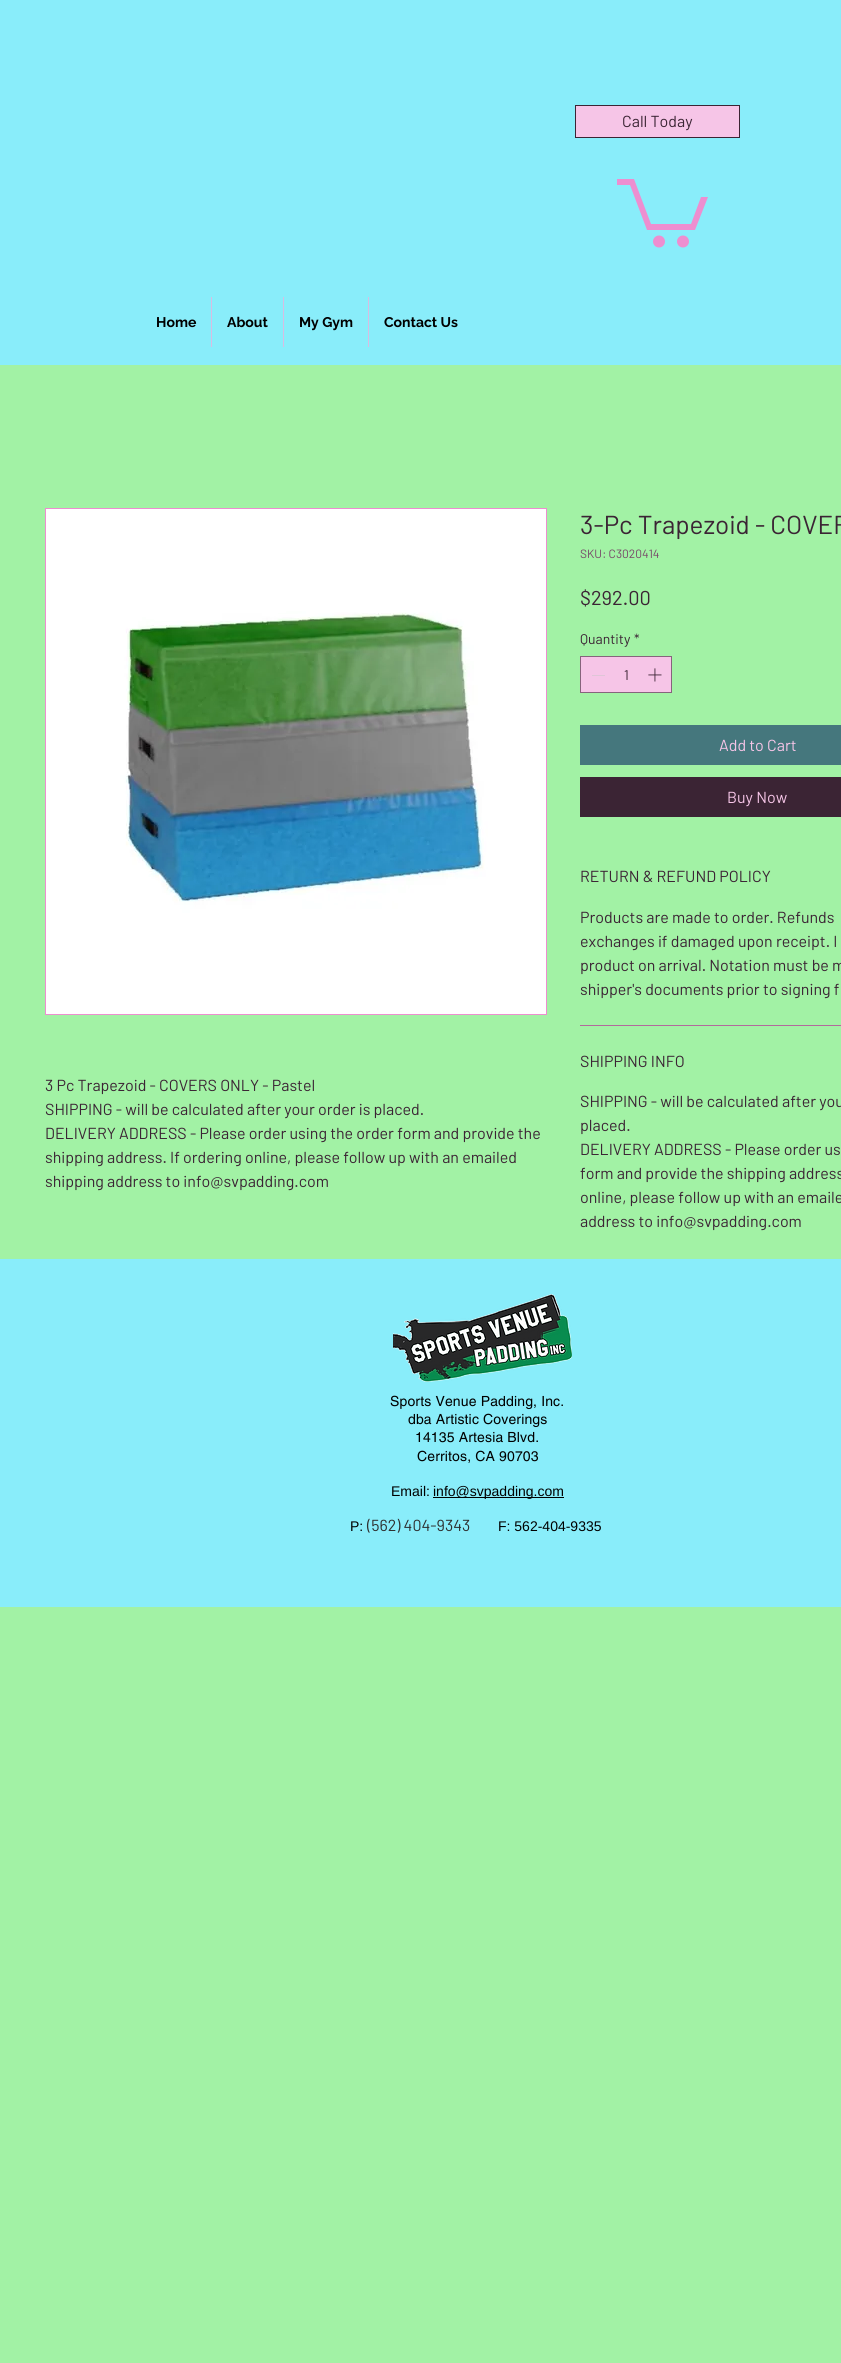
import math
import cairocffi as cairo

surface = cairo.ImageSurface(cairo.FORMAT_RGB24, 841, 2363)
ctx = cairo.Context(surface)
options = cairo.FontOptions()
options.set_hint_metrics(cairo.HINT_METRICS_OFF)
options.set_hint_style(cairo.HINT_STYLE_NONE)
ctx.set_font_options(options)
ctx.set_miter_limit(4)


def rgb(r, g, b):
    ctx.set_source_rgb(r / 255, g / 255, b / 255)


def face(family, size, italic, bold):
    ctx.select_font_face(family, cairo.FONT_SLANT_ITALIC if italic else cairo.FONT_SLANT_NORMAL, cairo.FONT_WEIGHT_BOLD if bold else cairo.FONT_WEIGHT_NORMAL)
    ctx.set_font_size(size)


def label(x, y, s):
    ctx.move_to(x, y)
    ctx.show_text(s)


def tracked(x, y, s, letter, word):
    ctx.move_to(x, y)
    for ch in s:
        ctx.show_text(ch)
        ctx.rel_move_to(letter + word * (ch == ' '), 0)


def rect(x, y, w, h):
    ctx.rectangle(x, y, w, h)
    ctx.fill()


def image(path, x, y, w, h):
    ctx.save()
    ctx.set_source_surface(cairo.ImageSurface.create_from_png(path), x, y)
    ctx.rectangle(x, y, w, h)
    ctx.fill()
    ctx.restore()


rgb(162, 242, 165)
ctx.paint()
rgb(137, 237, 250)
rect(0, 0, 841, 365)
rgb(246, 197, 231)
ctx.rectangle(575.5, 105.5, 164, 32)
ctx.fill_preserve()
rgb(59, 36, 52)
ctx.set_line_width(1)
ctx.stroke()
face('Barlow', 16, 0, 0)
label(622, 127, 'Call Today')
rgb(237, 142, 208)
ctx.new_path()
ctx.move_to(708, 197)
ctx.line_to(695, 230)
ctx.line_to(647, 230)
ctx.line_to(630, 185)
ctx.line_to(617, 185)
ctx.line_to(617, 179)
ctx.line_to(634, 179)
ctx.line_to(651, 224)
ctx.line_to(691, 224)
ctx.line_to(701, 197)
ctx.fill()
ctx.arc(683, 241.5, 6, 0, 2 * math.pi)
ctx.fill()
ctx.arc(659, 241.5, 6, 0, 2 * math.pi)
ctx.fill()
face('Raleway', 14, 0, 1)
rgb(0, 0, 0)
label(156, 327, 'Home')
rgb(216, 189, 226)
rect(211, 297, 1, 50)
rgb(0, 0, 0)
label(227, 327, 'About')
rgb(216, 189, 226)
rect(283, 297, 1, 50)
rgb(0, 0, 0)
label(299, 327, 'My Gym')
rgb(216, 189, 226)
rect(368, 297, 1, 50)
rgb(0, 0, 0)
label(384, 327, 'Contact Us')
ctx.rectangle(45.5, 508.5, 501, 506)
rgb(237, 142, 208)
ctx.stroke()
image('image0.png', 46, 509, 500, 505)
face('Barlow', 16, 0, 0)
rgb(59, 36, 52)
label(45, 1091, '3 Pc Trapezoid - COVERS ONLY - Pastel')
label(45, 1115, 'SHIPPING - will be calculated after your order is placed.')
label(45, 1139, 'DELIVERY ADDRESS - Please order using the order form and provide the')
label(45, 1163, 'shipping address. If ordering online, please follow up with an emailed')
label(45, 1187, 'shipping address to info@svpadding.com')
face('Barlow', 26, 0, 0)
label(580, 534, '3-Pc Trapezoid - COVER')
face('Barlow', 12, 0, 0)
rgb(119, 71, 104)
label(580, 558, 'SKU: C3020414')
face('Barlow', 20, 0, 0)
rgb(59, 36, 52)
label(580, 605, '$292.00')
face('Barlow', 14, 0, 0)
label(580, 644, 'Quantity')
label(634, 644, '*')
rgb(246, 197, 231)
ctx.rectangle(580.5, 656.5, 91, 36)
ctx.fill_preserve()
rgb(134, 100, 124)
ctx.stroke()
rgb(223, 198, 215)
rect(592, 675, 13, 1)
rgb(59, 36, 52)
label(624, 680, '1')
image('image1.png', 648, 668, 14, 14)
rgb(69, 119, 125)
rect(580, 725, 261, 40)
face('Barlow', 16, 0, 0)
rgb(246, 197, 231)
label(719, 751, 'Add to Cart')
rgb(59, 36, 52)
rect(580, 777, 261, 40)
rgb(246, 197, 231)
label(727, 803, 'Buy Now')
rgb(178, 106, 156)
rect(580, 1025, 261, 1)
rgb(59, 36, 52)
label(580, 882, 'RETURN & REFUND POLICY')
label(580, 923, 'Products are made to order. Refunds')
label(580, 947, 'exchanges if damaged upon receipt. I')
label(580, 971, 'product on arrival. Notation must be m')
label(580, 995, 'shipper\'s documents prior to signing f')
label(580, 1067, 'SHIPPING INFO')
label(580, 1107, 'SHIPPING - will be calculated after you')
label(580, 1131, 'placed.')
label(580, 1155, 'DELIVERY ADDRESS - Please order us')
label(580, 1179, 'form and provide the shipping address')
label(580, 1203, 'online, please follow up with an emaile')
label(580, 1227, 'address to info@svpadding.com')
rgb(137, 237, 250)
rect(0, 1259, 841, 348)
image('image2.png', 393, 1294, 179, 88)
face('helvetica', 14, 0, 0)
rgb(0, 0, 0)
tracked(390, 1406, 'Sports Venue Padding, Inc.', 0.15, 0)
tracked(408, 1424, 'dba Artistic Coverings', 0.15, 0)
tracked(415, 1442, '14135 Artesia Blvd.', 0.15, 0)
tracked(417, 1461, 'Cerritos, CA 90703', 0.15, 0)
face('Liberation Sans', 14, 0, 0)
label(391, 1496, 'Email:')
rect(433, 1497, 131, 1)
label(433, 1496, 'info@svpadding.com')
label(350, 1531, 'P:')
face('Barlow', 16, 0, 0)
rgb(46, 47, 47)
label(367, 1531, '(562) 404-9343')
face('Liberation Sans', 14, 0, 0)
rgb(0, 0, 0)
label(498, 1531, 'F: 562-404-9335')
surface.write_to_png('render.png')
